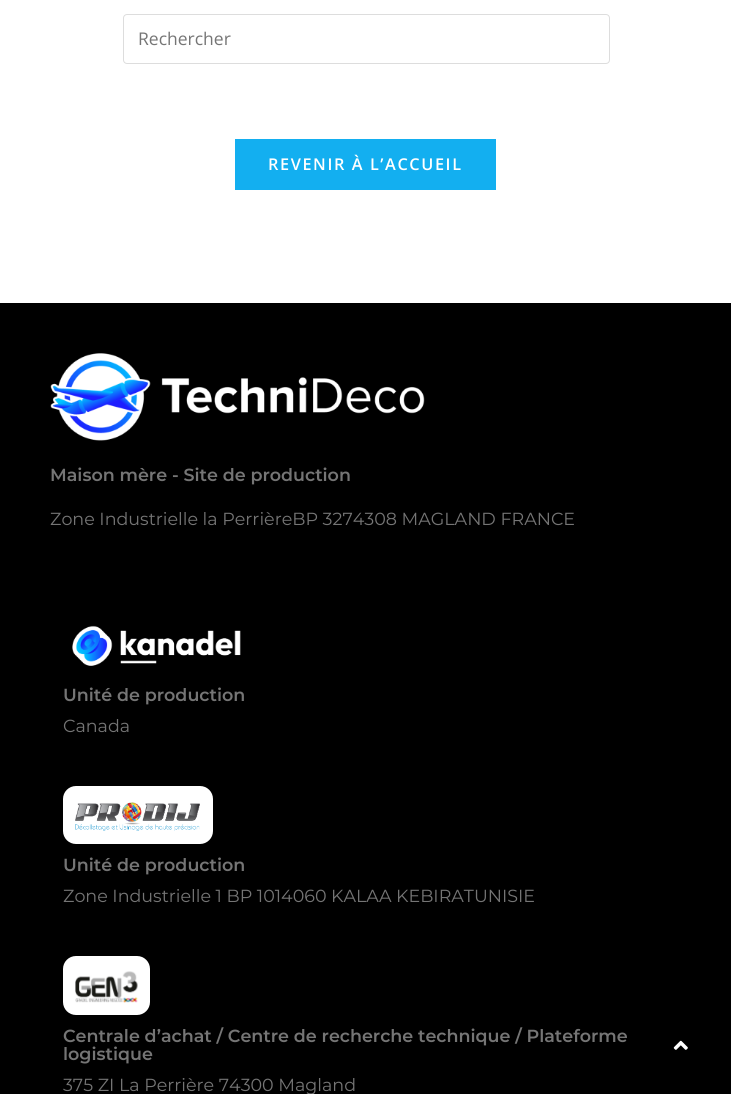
import math
import cairocffi as cairo

surface = cairo.ImageSurface(cairo.FORMAT_RGB24, 731, 1094)
ctx = cairo.Context(surface)
options = cairo.FontOptions()
options.set_hint_metrics(cairo.HINT_METRICS_OFF)
options.set_hint_style(cairo.HINT_STYLE_NONE)
ctx.set_font_options(options)
ctx.set_miter_limit(4)


def rgb(r, g, b):
    ctx.set_source_rgb(r / 255, g / 255, b / 255)


def face(family, size, italic, bold):
    ctx.select_font_face(family, cairo.FONT_SLANT_ITALIC if italic else cairo.FONT_SLANT_NORMAL, cairo.FONT_WEIGHT_BOLD if bold else cairo.FONT_WEIGHT_NORMAL)
    ctx.set_font_size(size)


def label(x, y, s):
    ctx.move_to(x, y)
    ctx.show_text(s)


def tracked(x, y, s, letter, word):
    ctx.move_to(x, y)
    for ch in s:
        ctx.show_text(ch)
        ctx.rel_move_to(letter + word * (ch == ' '), 0)


def rect(x, y, w, h):
    ctx.rectangle(x, y, w, h)
    ctx.fill()


def rrect(x, y, w, h, r):
    ctx.new_sub_path()
    for i, (u, v) in enumerate([(x + w - r, y + h - r), (x + r, y + h - r), (x + r, y + r), (x + w - r, y + r)]):
        ctx.arc(u, v, r, i * math.pi / 2, (i + 1) * math.pi / 2)
    ctx.close_path()


def image(path, x, y, w, h):
    ctx.save()
    ctx.set_source_surface(cairo.ImageSurface.create_from_png(path), x, y)
    ctx.rectangle(x, y, w, h)
    ctx.fill()
    ctx.restore()


rgb(255, 255, 255)
ctx.paint()
rrect(123.5, 14.5, 486, 49, 3.5)
rgb(221, 221, 221)
ctx.set_line_width(1)
ctx.stroke()
face('Open Sans', 17.5, 0, 0)
rgb(117, 117, 117)
label(138, 45, 'Rechercher')
rgb(19, 175, 240)
rect(235, 139, 261, 51)
face('Open Sans SemiBold', 16.25, 0, 0)
rgb(255, 255, 255)
tracked(268, 170, 'REVENIR À L’ACCUEIL', 1.6, 0)
rgb(0, 0, 0)
rect(0, 303, 731, 791)
image('image0.png', 50, 353, 375, 88)
face('Montserrat SemiBold', 17.5, 0, 0)
rgb(117, 117, 117)
label(50, 481, 'Maison mère - Site de production')
face('Montserrat', 17.5, 0, 0)
label(50, 525, 'Zone Industrielle la PerrièreBP 3274308 MAGLAND FRANCE')
image('image1.png', 72, 625, 169, 41)
face('Montserrat SemiBold', 17.5, 0, 0)
label(63, 701, 'Unité de production')
face('Montserrat', 17.5, 0, 0)
label(63, 732, 'Canada')
rgb(255, 255, 255)
rrect(63, 786, 150, 58, 13)
ctx.fill()
image('image2.png', 75, 802, 125, 29)
face('Montserrat SemiBold', 17.5, 0, 0)
rgb(117, 117, 117)
label(63, 871, 'Unité de production')
face('Montserrat', 17.5, 0, 0)
label(63, 902, 'Zone Industrielle 1 BP 1014060 KALAA KEBIRATUNISIE')
rgb(255, 255, 255)
rrect(63, 956, 87, 59, 13)
ctx.fill()
image('image3.png', 75, 971, 63, 32)
face('Montserrat SemiBold', 17.5, 0, 0)
rgb(117, 117, 117)
label(63, 1042, 'Centrale d’achat / Centre de recherche technique / Plateforme')
label(63, 1060, 'logistique')
face('Montserrat', 17.5, 0, 0)
label(63, 1091, '375 ZI La Perrière 74300 Magland')
image('image4.png', 673, 1040, 15, 10)
surface.write_to_png('render.png')
